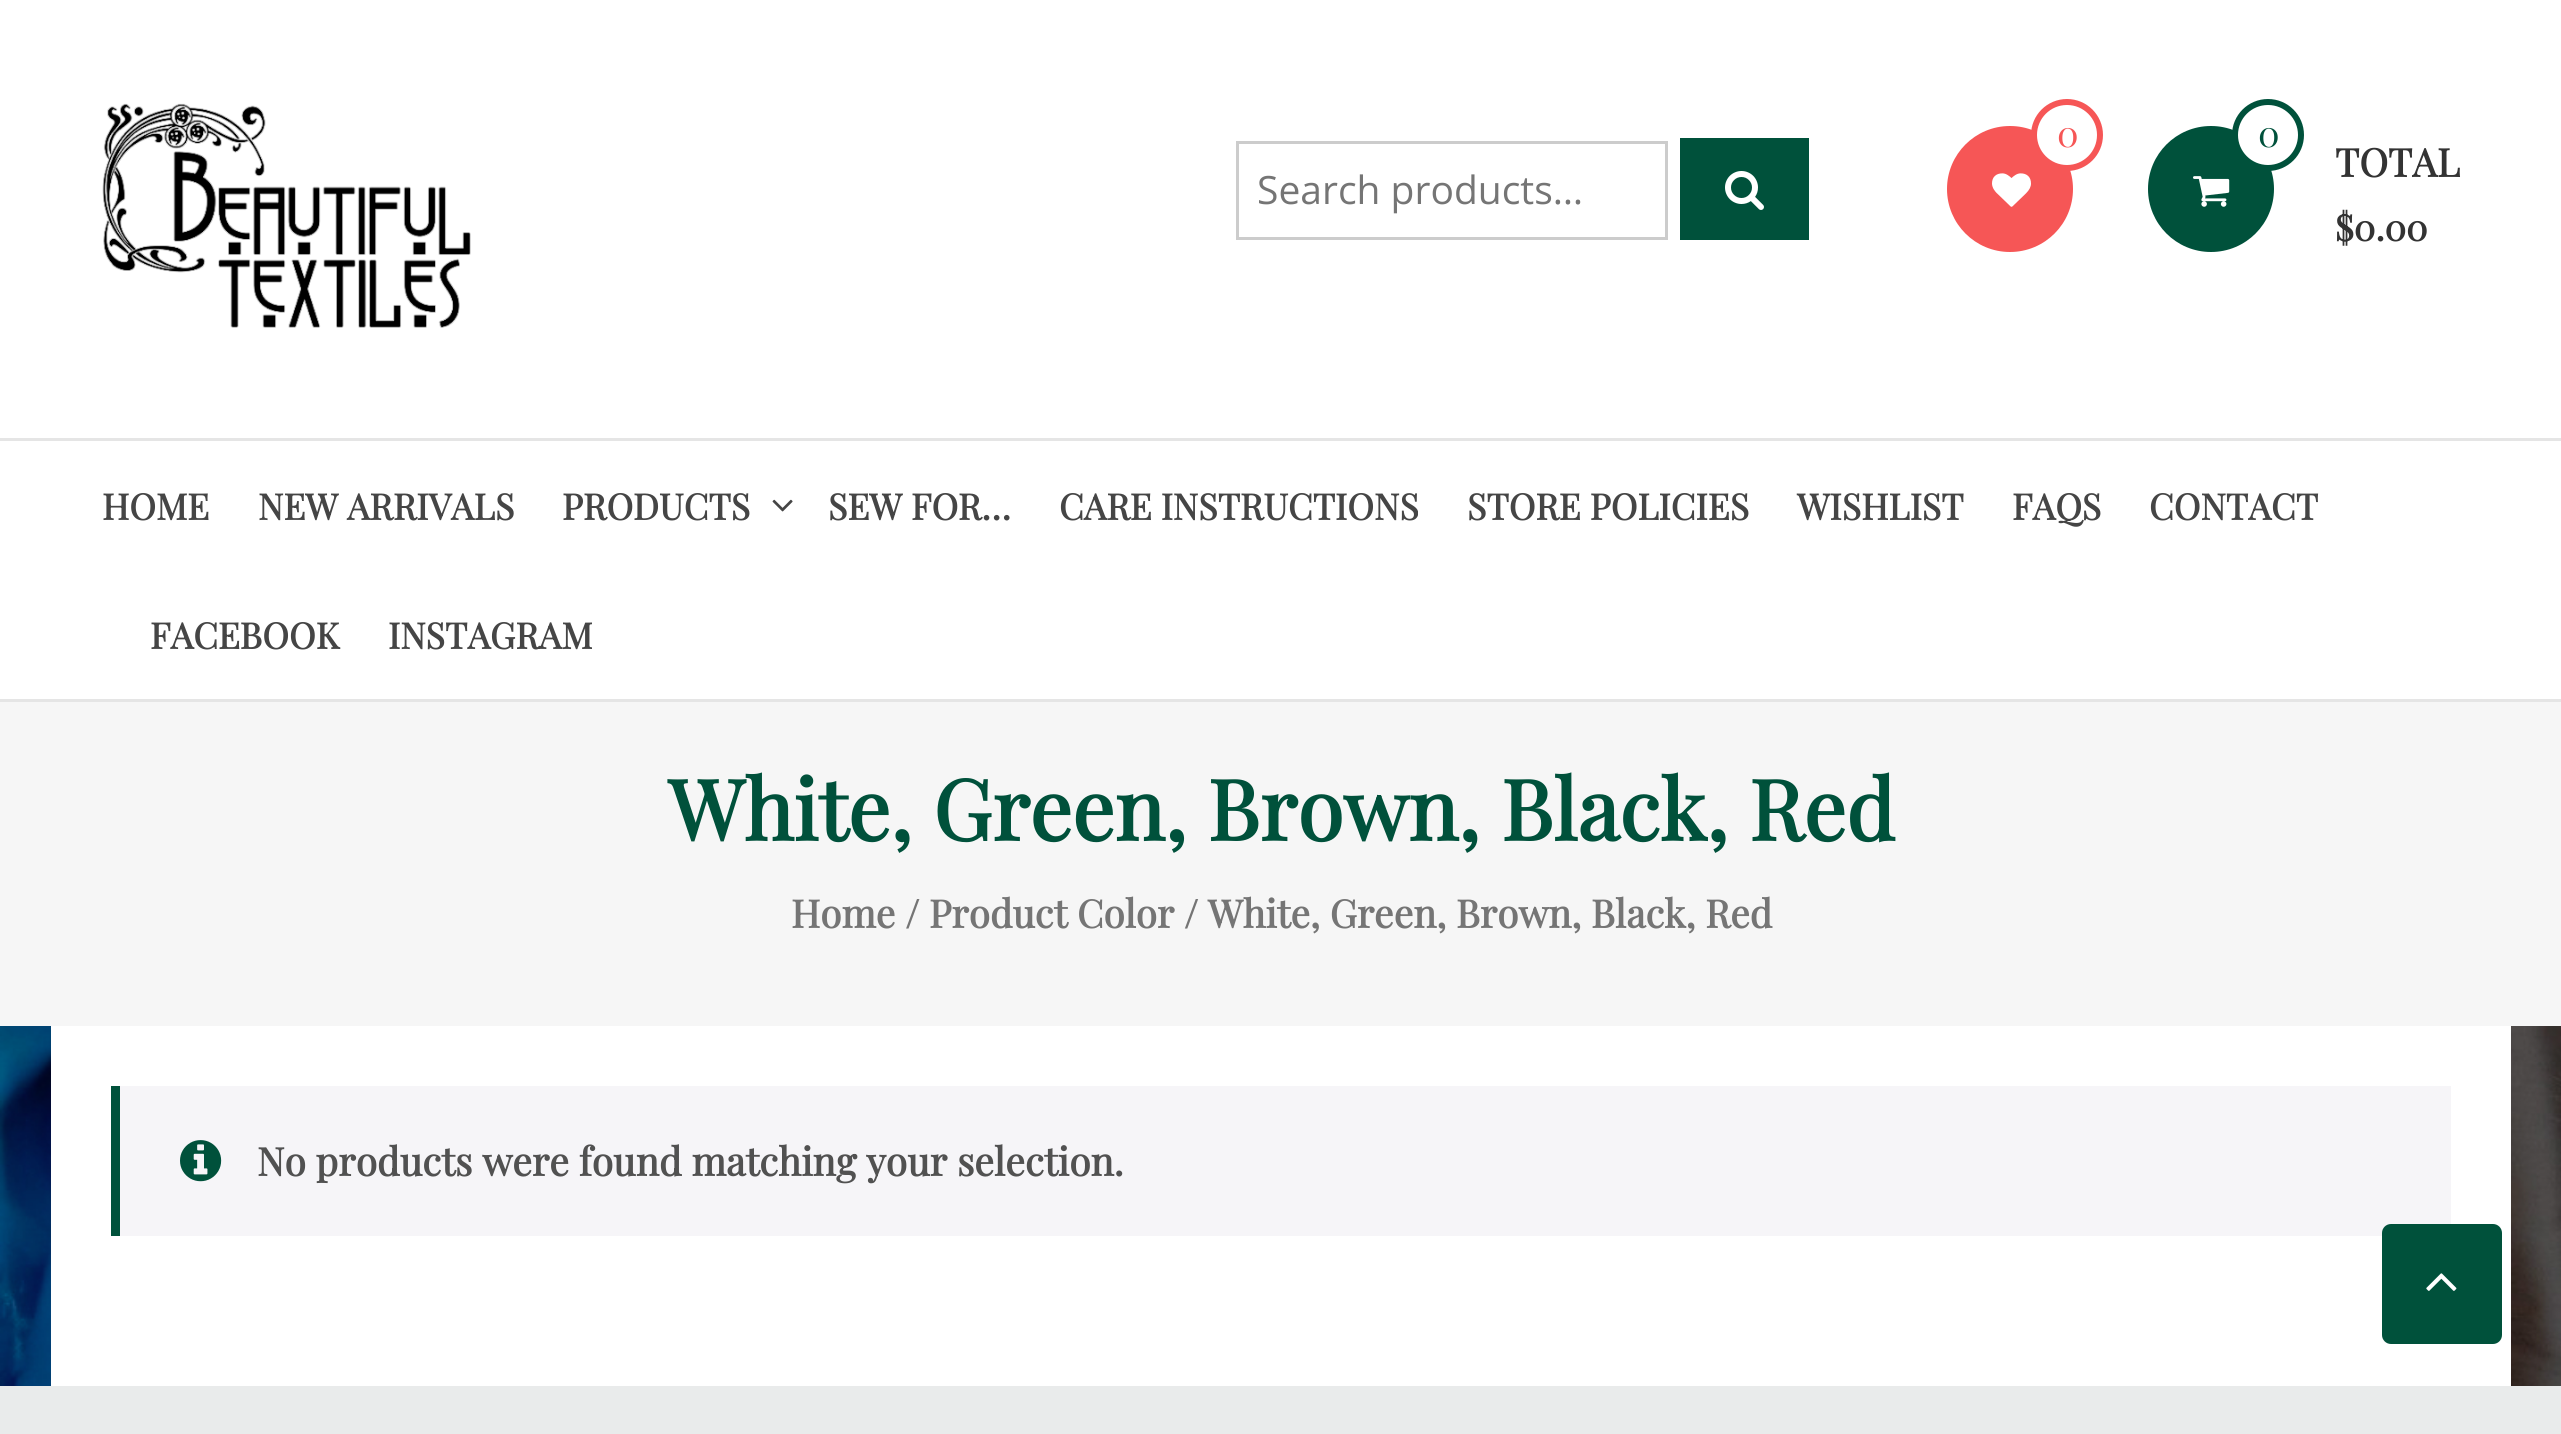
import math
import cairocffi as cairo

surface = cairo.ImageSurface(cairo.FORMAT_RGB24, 2561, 1434)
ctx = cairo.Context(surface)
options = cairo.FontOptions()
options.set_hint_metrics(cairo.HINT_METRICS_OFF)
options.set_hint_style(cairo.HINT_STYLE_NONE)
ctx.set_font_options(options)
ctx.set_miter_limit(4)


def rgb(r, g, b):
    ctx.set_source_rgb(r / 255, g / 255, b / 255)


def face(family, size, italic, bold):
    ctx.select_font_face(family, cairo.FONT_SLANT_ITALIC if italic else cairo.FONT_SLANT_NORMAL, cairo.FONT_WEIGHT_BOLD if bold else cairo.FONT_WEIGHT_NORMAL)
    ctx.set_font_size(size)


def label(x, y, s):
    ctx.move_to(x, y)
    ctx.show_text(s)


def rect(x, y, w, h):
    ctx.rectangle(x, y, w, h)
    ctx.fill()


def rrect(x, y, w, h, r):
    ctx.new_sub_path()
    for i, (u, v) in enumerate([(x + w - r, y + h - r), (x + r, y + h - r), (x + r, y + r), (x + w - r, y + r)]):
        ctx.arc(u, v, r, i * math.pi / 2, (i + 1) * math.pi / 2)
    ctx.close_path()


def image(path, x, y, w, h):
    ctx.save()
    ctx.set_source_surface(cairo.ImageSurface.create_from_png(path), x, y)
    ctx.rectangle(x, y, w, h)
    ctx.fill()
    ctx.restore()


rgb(255, 255, 255)
ctx.paint()
image('image0.png', 102, 103, 369, 225)
ctx.rectangle(1237.5, 142.5, 429, 96)
rgb(204, 204, 204)
ctx.set_line_width(3)
ctx.stroke()
face('Open Sans', 39, 0, 0)
rgb(117, 117, 117)
label(1257, 204, 'Search products…')
rgb(0, 81, 59)
rect(1680, 138, 129, 102)
image('image1.png', 1725, 171, 39, 39)
rgb(246, 86, 86)
ctx.arc(2010, 189, 63, 0, 2 * math.pi)
ctx.fill()
rgb(255, 255, 255)
ctx.arc(2067, 135, 33, 0, 2 * math.pi)
ctx.fill_preserve()
rgb(246, 86, 86)
ctx.set_line_width(6)
ctx.stroke()
face('Playfair Display', 36, 0, 0)
label(2057, 147, '0')
image('image2.png', 1992, 173, 39, 34)
rgb(0, 81, 59)
ctx.arc(2211, 189, 63, 0, 2 * math.pi)
ctx.fill()
rgb(255, 255, 255)
ctx.arc(2268, 135, 33, 0, 2 * math.pi)
ctx.fill_preserve()
rgb(0, 81, 59)
ctx.stroke()
label(2258, 147, '0')
image('image3.png', 2193, 176, 37, 31)
face('Playfair Display', 39, 0, 1)
rgb(51, 51, 51)
label(2335, 177, 'TOTAL')
face('Playfair Display', 36, 0, 1)
label(2335, 241, '$0.00')
rgb(229, 229, 229)
rect(0, 438, 2561, 3)
rect(0, 699, 2561, 3)
rgb(69, 69, 69)
label(102, 520, 'HOME')
label(258, 520, 'NEW ARRIVALS')
label(562, 520, 'PRODUCTS')
image('image4.png', 772, 499, 21, 13)
label(828, 520, 'SEW FOR…')
label(1059, 520, 'CARE INSTRUCTIONS')
label(1467, 520, 'STORE POLICIES')
label(1797, 520, 'WISHLIST')
label(2012, 520, 'FAQS')
label(2149, 520, 'CONTACT')
label(150, 649, 'FACEBOOK')
label(388, 649, 'INSTAGRAM')
image('image5.png', 0, 1026, 2561, 360)
rgb(246, 246, 246)
rect(0, 702, 2561, 324)
face('Playfair Display', 84, 0, 1)
rgb(0, 81, 59)
label(668, 841, 'White, Green, Brown, Black, Red')
face('Playfair Display', 38.65, 0, 1)
rgb(117, 117, 117)
label(791, 928, 'Home / Product Color / White, Green, Brown, Black, Red')
rgb(255, 255, 255)
rect(51, 1026, 2460, 360)
rgb(246, 245, 248)
rect(120, 1086, 2331, 150)
rgb(0, 81, 59)
rect(111, 1086, 9, 150)
image('image6.png', 180, 1140, 42, 42)
face('Playfair Display', 39, 0, 1)
rgb(81, 81, 81)
label(257, 1176, 'No products were found matching your selection.')
rgb(0, 81, 59)
rrect(2382, 1224, 120, 120, 9)
ctx.fill()
image('image7.png', 2426, 1273, 31, 18)
rgb(233, 235, 235)
rect(0, 1386, 2561, 48)
surface.write_to_png('render.png')
